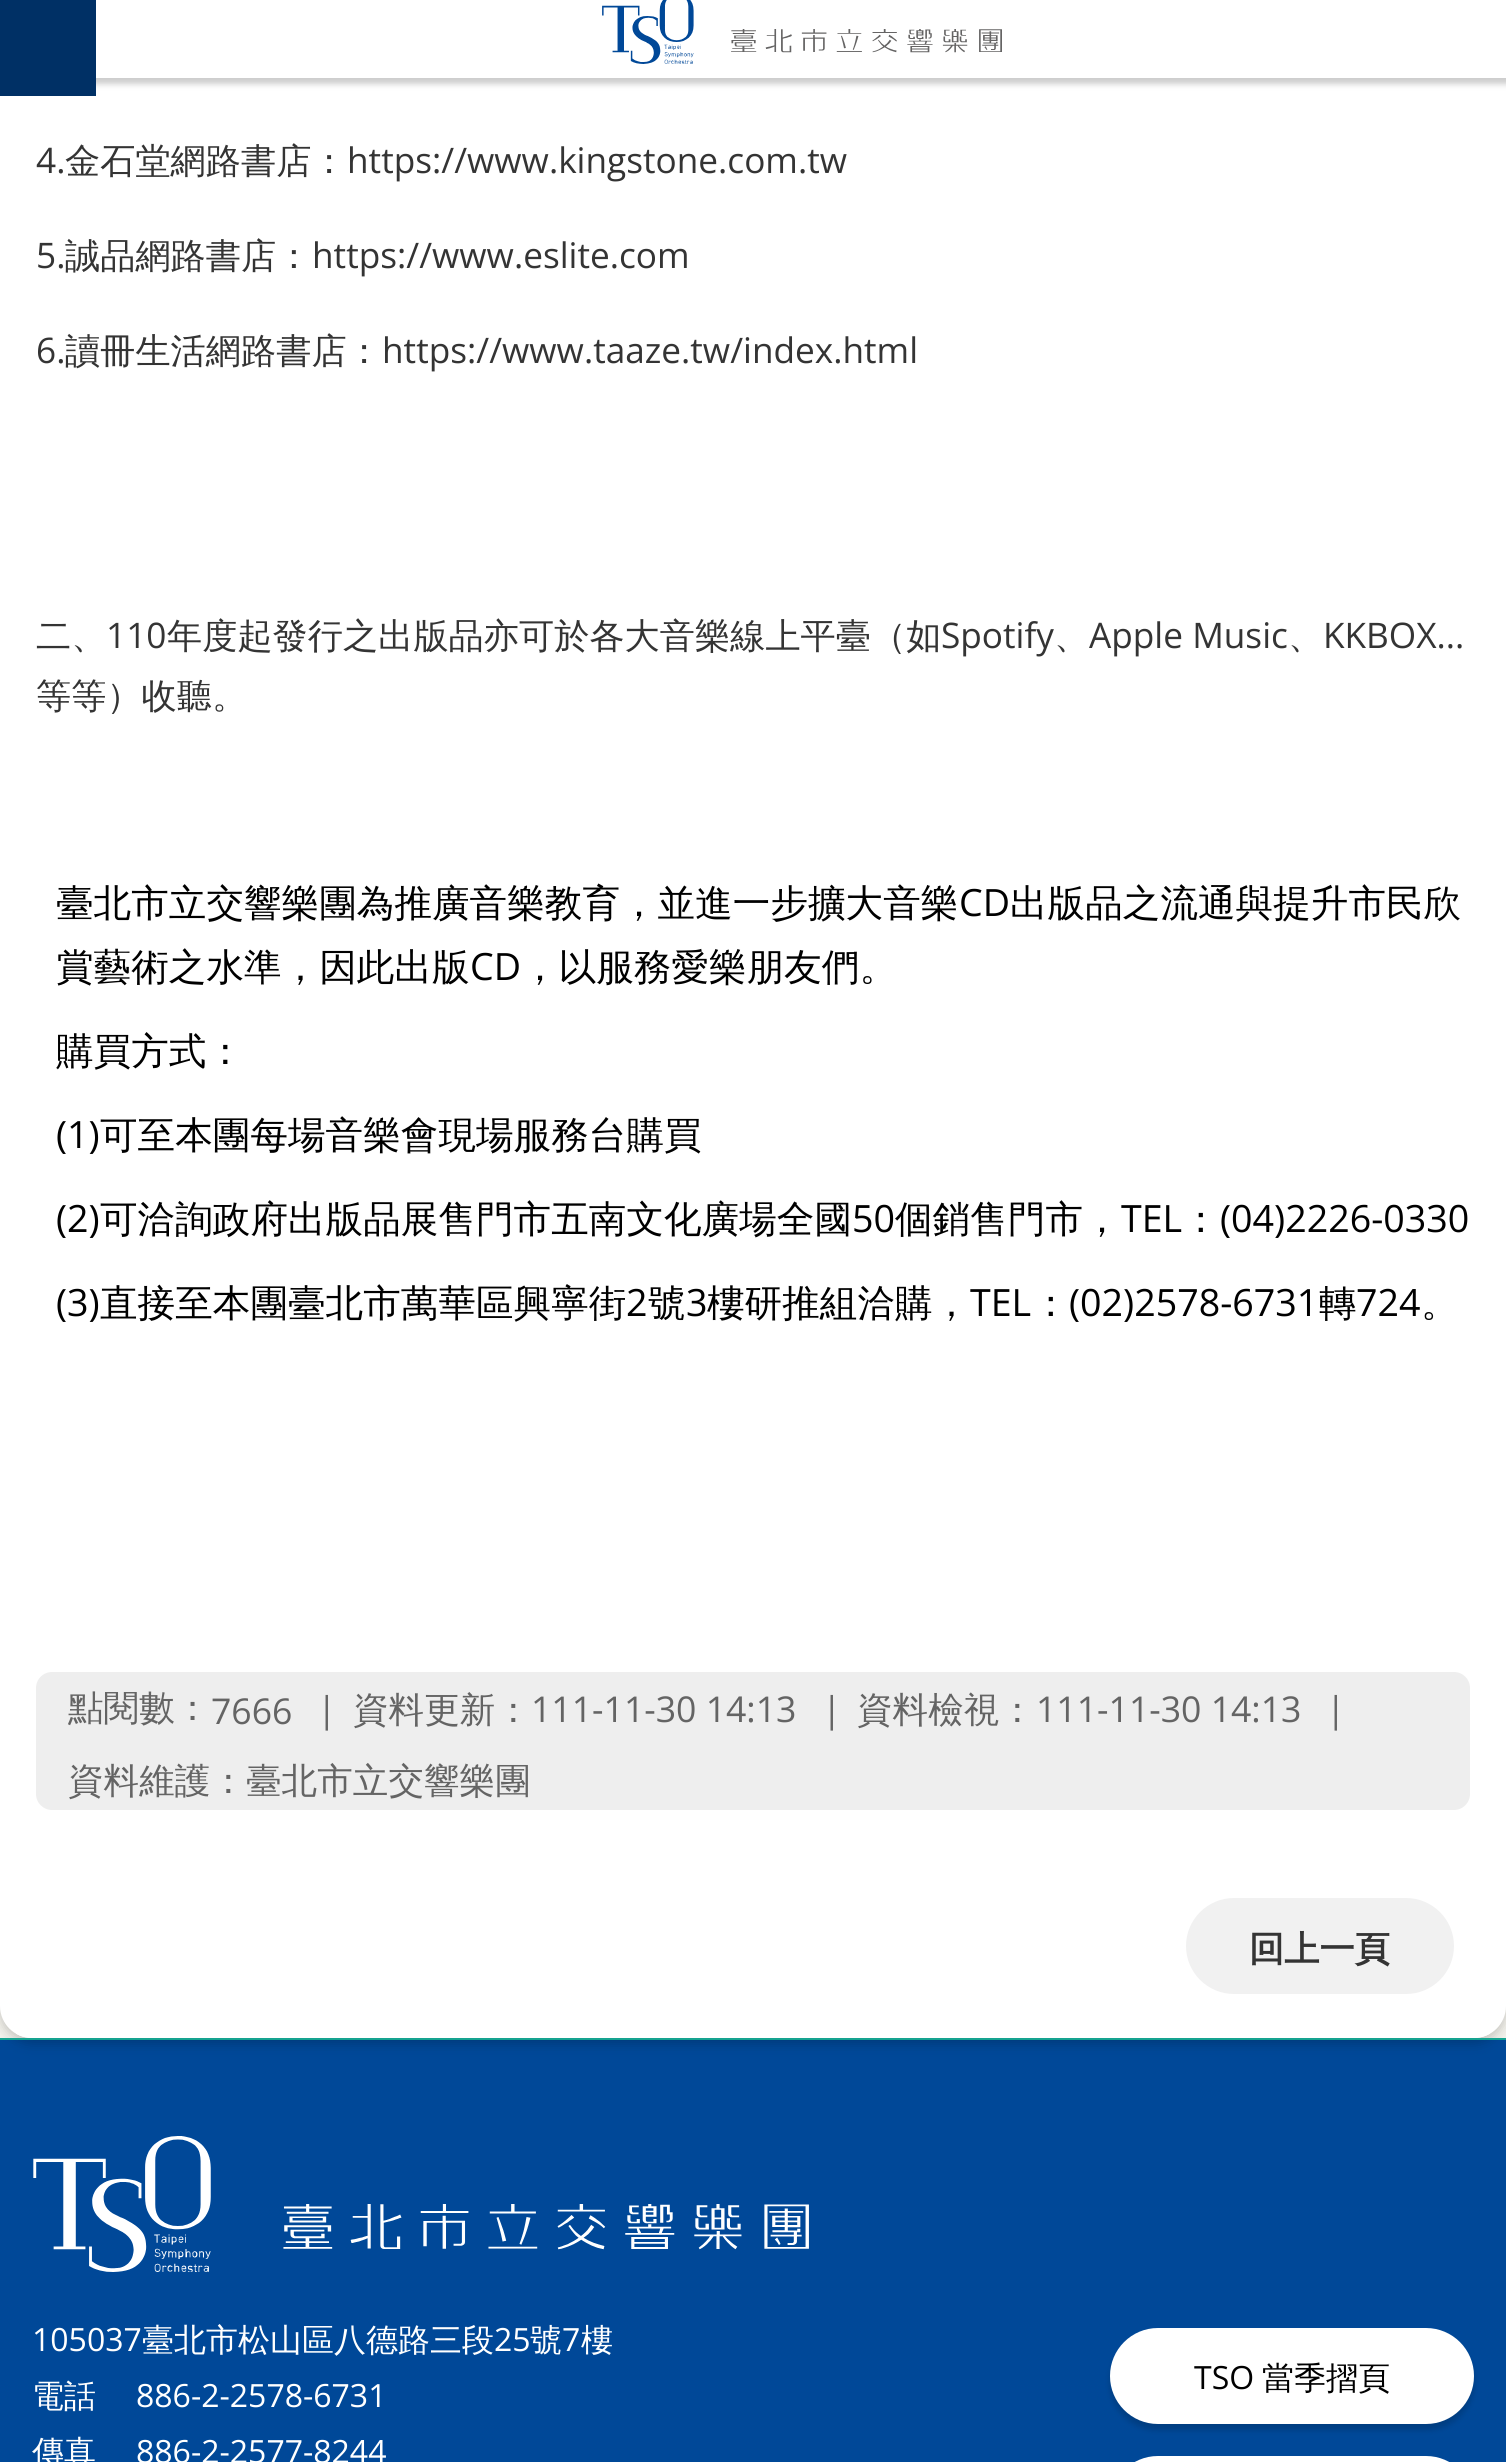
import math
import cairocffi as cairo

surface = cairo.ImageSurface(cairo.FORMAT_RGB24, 1506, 2462)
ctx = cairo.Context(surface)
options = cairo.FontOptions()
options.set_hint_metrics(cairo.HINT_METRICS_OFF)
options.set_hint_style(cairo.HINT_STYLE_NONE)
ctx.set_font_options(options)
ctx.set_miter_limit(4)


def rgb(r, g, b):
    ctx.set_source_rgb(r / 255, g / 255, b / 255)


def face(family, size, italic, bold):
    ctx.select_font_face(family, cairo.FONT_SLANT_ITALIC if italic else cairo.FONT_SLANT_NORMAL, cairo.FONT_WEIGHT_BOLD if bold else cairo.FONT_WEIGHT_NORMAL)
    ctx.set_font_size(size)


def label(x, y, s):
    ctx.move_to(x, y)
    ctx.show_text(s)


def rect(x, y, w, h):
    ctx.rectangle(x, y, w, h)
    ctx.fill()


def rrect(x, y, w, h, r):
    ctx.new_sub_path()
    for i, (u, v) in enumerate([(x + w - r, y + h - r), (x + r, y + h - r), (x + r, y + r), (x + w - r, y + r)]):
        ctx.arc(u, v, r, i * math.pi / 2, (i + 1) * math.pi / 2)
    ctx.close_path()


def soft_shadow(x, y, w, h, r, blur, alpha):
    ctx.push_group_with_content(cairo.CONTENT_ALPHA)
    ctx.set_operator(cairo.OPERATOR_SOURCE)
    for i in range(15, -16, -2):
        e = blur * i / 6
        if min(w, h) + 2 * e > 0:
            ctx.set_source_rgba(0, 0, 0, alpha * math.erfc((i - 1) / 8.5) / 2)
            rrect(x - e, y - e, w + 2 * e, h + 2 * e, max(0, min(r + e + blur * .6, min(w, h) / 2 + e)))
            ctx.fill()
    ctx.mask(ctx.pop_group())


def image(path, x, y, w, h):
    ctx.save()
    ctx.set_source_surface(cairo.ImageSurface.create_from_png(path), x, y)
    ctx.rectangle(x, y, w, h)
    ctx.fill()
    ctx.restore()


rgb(244, 243, 237)
ctx.paint()
rgb(0, 72, 152)
rect(0, 2040, 1506, 422)
rgb(0, 0, 0)
soft_shadow(0, -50, 1506, 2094, 32, 6, 0.2)
rgb(255, 255, 255)
rrect(0, -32, 1506, 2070, 32)
ctx.fill()
ctx.save()
rrect(0, -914, 1506, 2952, 32)
ctx.clip()
rect(16, 78, 1474, 1960)
ctx.restore()
rgb(0, 0, 0)
soft_shadow(6, -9, 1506, 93, 0, 3, 0.2)
rgb(0, 48, 101)
rect(0, 0, 96, 96)
rgb(255, 255, 255)
rect(96, 0, 1410, 78)
image('image0.png', 602, 0, 400, 64)
face('Open Sans', 35.2, 0, 0)
rgb(52, 52, 52)
label(36, 173, '4.')
face('WenQuanYi Zen Hei Medium', 35.2, 0, 0)
label(65, 173, '金石堂網路書店：')
face('Open Sans', 35.2, 0, 0)
label(347, 173, 'https://www.kingstone.com.tw')
label(36, 268, '5.')
face('WenQuanYi Zen Hei Medium', 35.2, 0, 0)
label(65, 268, '誠品網路書店：')
face('Open Sans', 35.2, 0, 0)
label(312, 268, 'https://www.eslite.com')
label(36, 363, '6.')
face('WenQuanYi Zen Hei Medium', 35.2, 0, 0)
label(65, 363, '讀冊生活網路書店：')
face('Open Sans', 35.2, 0, 0)
label(382, 363, 'https://www.taaze.tw/index.html')
face('WenQuanYi Zen Hei Medium', 35.2, 0, 0)
label(36, 648, '二、')
face('Open Sans', 35.2, 0, 0)
label(106, 648, '110')
face('WenQuanYi Zen Hei Medium', 35.2, 0, 0)
label(167, 648, '年度起發行之出版品亦可於各大音樂線上平臺（如')
face('Open Sans', 35.2, 0, 0)
label(941, 648, 'Spotify')
face('WenQuanYi Zen Hei Medium', 35.2, 0, 0)
label(1054, 648, '、')
face('Open Sans', 35.2, 0, 0)
label(1089, 648, 'Apple Music')
face('WenQuanYi Zen Hei Medium', 35.2, 0, 0)
label(1288, 648, '、')
face('Open Sans', 35.2, 0, 0)
label(1323, 648, 'KKBOX...')
face('WenQuanYi Zen Hei Medium', 35.2, 0, 0)
label(36, 708, '等等）收聽。')
face('WenQuanYi Zen Hei Medium', 37.6, 0, 0)
rgb(0, 0, 0)
label(56, 916, '臺北市立交響樂團為推廣音樂教育，並進一步擴大音樂')
face('Open Sans', 37.6, 0, 0)
label(959, 916, 'CD')
face('WenQuanYi Zen Hei Medium', 37.6, 0, 0)
label(1010, 916, '出版品之流通與提升市民欣')
label(56, 980, '賞藝術之水準，因此出版')
face('Open Sans', 37.6, 0, 0)
label(470, 980, 'CD')
face('WenQuanYi Zen Hei Medium', 37.6, 0, 0)
label(521, 980, '，以服務愛樂朋友們。')
label(56, 1064, '購買方式：')
face('Open Sans', 37.6, 0, 0)
label(56, 1148, '(1)')
face('WenQuanYi Zen Hei Medium', 37.6, 0, 0)
label(100, 1148, '可至本團每場音樂會現場服務台購買')
face('Open Sans', 37.6, 0, 0)
label(56, 1232, '(2)')
face('WenQuanYi Zen Hei Medium', 37.6, 0, 0)
label(100, 1232, '可洽詢政府出版品展售門市五南文化廣場全國')
face('Open Sans', 37.6, 0, 0)
label(852, 1232, '50')
face('WenQuanYi Zen Hei Medium', 37.6, 0, 0)
label(895, 1232, '個銷售門市，')
face('Open Sans', 37.6, 0, 0)
label(1121, 1232, 'TEL')
face('WenQuanYi Zen Hei Medium', 37.6, 0, 0)
label(1182, 1232, '：')
face('Open Sans', 37.6, 0, 0)
label(1220, 1232, '(04)2226-0330')
label(56, 1316, '(3)')
face('WenQuanYi Zen Hei Medium', 37.6, 0, 0)
label(100, 1316, '直接至本團臺北市萬華區興寧街')
face('Open Sans', 37.6, 0, 0)
label(626, 1316, '2')
face('WenQuanYi Zen Hei Medium', 37.6, 0, 0)
label(648, 1316, '號')
face('Open Sans', 37.6, 0, 0)
label(686, 1316, '3')
face('WenQuanYi Zen Hei Medium', 37.6, 0, 0)
label(707, 1316, '樓研推組洽購，')
face('Open Sans', 37.6, 0, 0)
label(970, 1316, 'TEL')
face('WenQuanYi Zen Hei Medium', 37.6, 0, 0)
label(1032, 1316, '：')
face('Open Sans', 37.6, 0, 0)
label(1069, 1316, '(02)2578-6731')
face('WenQuanYi Zen Hei Medium', 37.6, 0, 0)
label(1319, 1316, '轉')
face('Open Sans', 37.6, 0, 0)
label(1356, 1316, '724')
face('WenQuanYi Zen Hei Medium', 37.6, 0, 0)
label(1421, 1316, '。')
rgb(238, 238, 238)
rrect(36, 1672, 1434, 138, 16)
ctx.fill()
face('WenQuanYi Zen Hei Medium', 35.6, 0, 0)
rgb(100, 100, 100)
label(68, 1720, '點閱數：')
face('Open Sans', 35.6, 0, 0)
label(211, 1724, '7666')
label(317, 1722, '|')
face('WenQuanYi Zen Hei Medium', 35.6, 0, 0)
label(353, 1722, '資料更新：')
face('Open Sans', 35.6, 0, 0)
label(531, 1722, '111-11-30 14:13')
label(822, 1722, '|')
face('WenQuanYi Zen Hei Medium', 35.6, 0, 0)
label(857, 1722, '資料檢視：')
face('Open Sans', 35.6, 0, 0)
label(1036, 1722, '111-11-30 14:13')
label(1326, 1722, '|')
face('WenQuanYi Zen Hei Medium', 35.6, 0, 0)
label(68, 1793, '資料維護：臺北市立交響樂團')
rgb(241, 241, 241)
rrect(1186, 1898, 268, 96, 48)
ctx.fill()
face('WenQuanYi Zen Hei', 35.2, 0, 1)
rgb(52, 52, 52)
label(1249, 1961, '回上一頁')
rgb(21, 163, 144)
rect(0, 2038, 1506, 2)
image('image1.png', 33, 2136, 776, 136)
face('Open Sans', 32, 0, 0)
rgb(255, 255, 255)
label(32, 2351, '105037')
face('WenQuanYi Zen Hei Medium', 32, 0, 0)
label(142, 2351, '臺北市松山區八德路三段')
face('Open Sans', 32, 0, 0)
label(494, 2351, '25')
face('WenQuanYi Zen Hei Medium', 32, 0, 0)
label(530, 2351, '號')
face('Open Sans', 32, 0, 0)
label(562, 2351, '7')
face('WenQuanYi Zen Hei Medium', 32, 0, 0)
label(581, 2351, '樓')
label(32, 2407, '電話')
face('Open Sans', 32, 0, 0)
label(136, 2407, '886-2-2578-6731')
face('WenQuanYi Zen Hei Medium', 32, 0, 0)
label(32, 2463, '傳真')
face('Open Sans', 32, 0, 0)
label(136, 2463, '886-2-2577-8244')
rgb(0, 0, 0)
soft_shadow(1110, 2334, 364, 96, 48, 3, 0.16)
rgb(255, 255, 255)
rrect(1110, 2328, 364, 96, 48)
ctx.fill()
rgb(0, 0, 0)
label(1194, 2389, 'TSO')
face('WenQuanYi Zen Hei Medium', 32, 0, 0)
label(1262, 2389, '當季摺頁')
rgb(255, 255, 255)
rrect(1110, 2456, 364, 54, 48)
ctx.fill()
surface.write_to_png('render.png')
